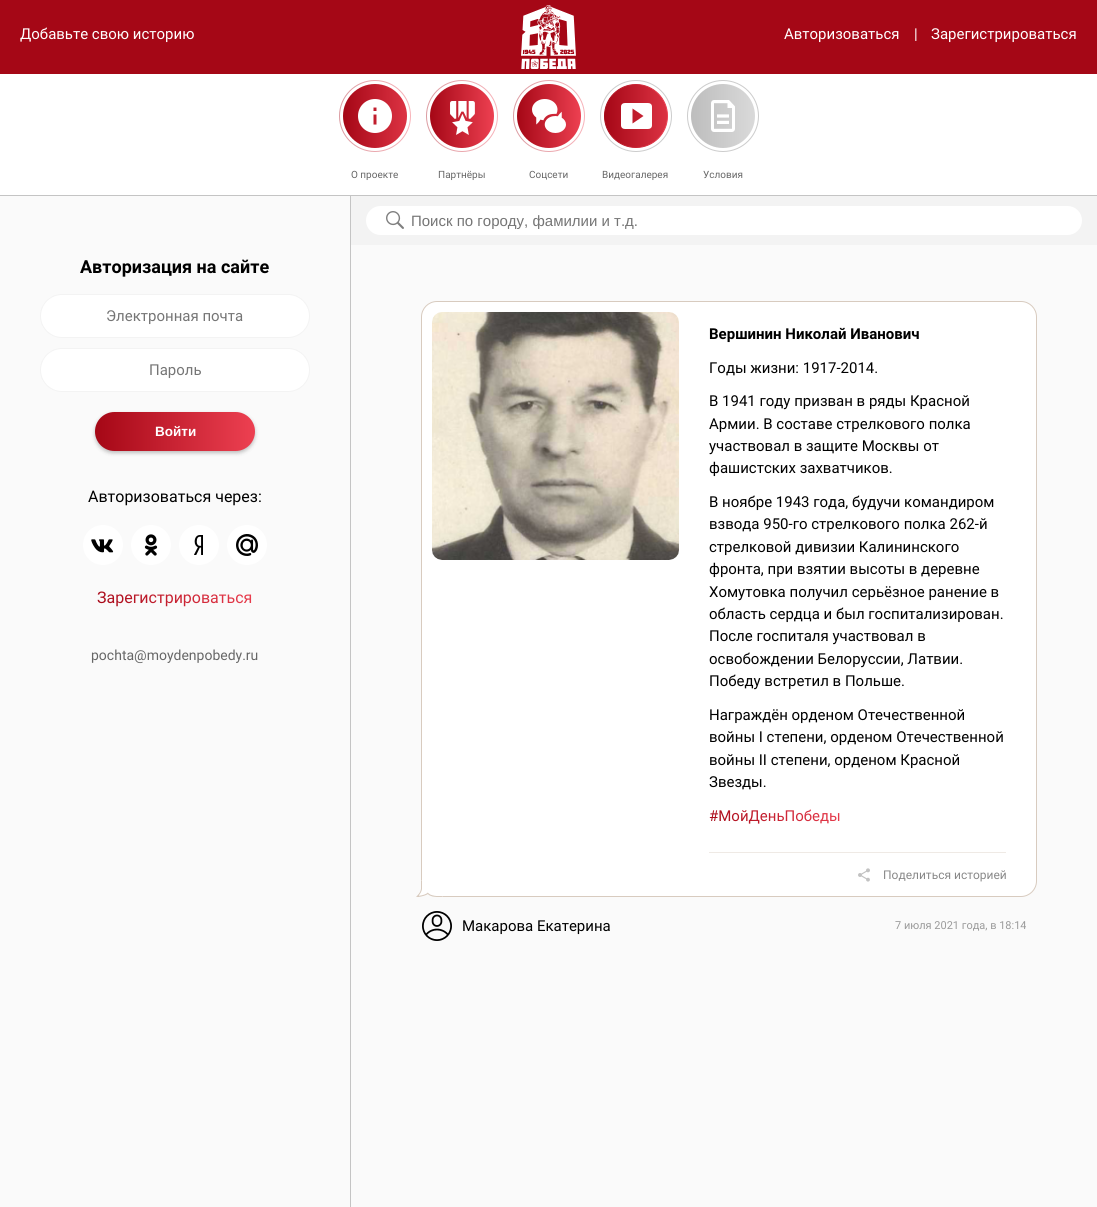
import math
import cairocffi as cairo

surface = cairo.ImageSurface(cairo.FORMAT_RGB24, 1097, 1207)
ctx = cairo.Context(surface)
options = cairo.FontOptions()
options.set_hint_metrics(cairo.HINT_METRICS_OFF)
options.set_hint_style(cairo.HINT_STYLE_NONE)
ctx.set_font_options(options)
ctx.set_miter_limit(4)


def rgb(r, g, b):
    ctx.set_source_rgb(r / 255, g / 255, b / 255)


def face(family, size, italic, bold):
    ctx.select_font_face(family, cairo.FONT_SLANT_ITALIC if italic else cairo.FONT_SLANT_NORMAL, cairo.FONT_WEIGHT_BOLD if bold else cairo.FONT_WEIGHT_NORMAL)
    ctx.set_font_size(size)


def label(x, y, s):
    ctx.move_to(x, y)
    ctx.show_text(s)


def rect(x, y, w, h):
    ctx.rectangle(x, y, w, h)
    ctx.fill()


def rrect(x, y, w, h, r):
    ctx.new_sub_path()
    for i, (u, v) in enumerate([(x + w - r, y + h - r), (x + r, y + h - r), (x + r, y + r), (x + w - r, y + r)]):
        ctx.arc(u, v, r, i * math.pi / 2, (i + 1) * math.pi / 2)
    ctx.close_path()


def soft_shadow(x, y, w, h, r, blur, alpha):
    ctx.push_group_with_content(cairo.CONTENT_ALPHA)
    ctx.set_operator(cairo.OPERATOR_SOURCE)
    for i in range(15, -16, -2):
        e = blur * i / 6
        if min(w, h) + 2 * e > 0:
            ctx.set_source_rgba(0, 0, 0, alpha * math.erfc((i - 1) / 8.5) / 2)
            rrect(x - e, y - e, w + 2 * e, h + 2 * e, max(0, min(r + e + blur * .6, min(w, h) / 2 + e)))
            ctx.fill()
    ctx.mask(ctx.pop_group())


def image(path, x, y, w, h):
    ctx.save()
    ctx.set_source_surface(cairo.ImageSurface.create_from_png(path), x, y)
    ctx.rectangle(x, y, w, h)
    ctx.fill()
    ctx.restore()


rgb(250, 250, 250)
ctx.paint()
rgb(165, 7, 22)
rect(0, 0, 1097, 74)
face('Roboto', 15, 0, 0)
rgb(255, 255, 255)
label(20, 39, 'Добавьте свою историю')
image('image0.png', 521, 5, 55, 64)
label(784, 39, 'Авторизоваться')
label(914, 39, '|')
label(931, 39, 'Зарегистрироваться')
rect(0, 74, 1097, 121)
rgb(196, 196, 196)
rect(0, 195, 1097, 1)
gradient = cairo.LinearGradient(343, 116, 426, 116)
gradient.add_color_stop_rgba(0, 0.647, 0.027, 0.086, 1)
gradient.add_color_stop_rgba(1, 0.929, 0.251, 0.318, 1)
ctx.set_source(gradient)
ctx.new_path()
ctx.arc(375, 116, 32, 0, 2 * math.pi)
ctx.fill()
rgb(255, 255, 255)
ctx.new_path()
ctx.move_to(375, 99)
ctx.curve_to(365.5, 99, 358, 106.5, 358, 116)
ctx.curve_to(358, 125.5, 365.5, 133, 375, 133)
ctx.curve_to(384.5, 133, 392, 125.5, 392, 116)
ctx.curve_to(392, 106.5, 384.5, 99, 375, 99)
ctx.close_path()
ctx.move_to(376.5, 124.5)
ctx.line_to(373.5, 124.5)
ctx.line_to(373.5, 114.5)
ctx.line_to(376.5, 114.5)
ctx.close_path()
ctx.move_to(376.5, 111)
ctx.line_to(373.5, 111)
ctx.line_to(373.5, 107.5)
ctx.line_to(376.5, 107.5)
ctx.close_path()
ctx.fill()
ctx.arc(375, 116, 35.5, 0, 2 * math.pi)
gradient = cairo.LinearGradient(339, 116, 411, 116)
gradient.add_color_stop_rgba(0, 0.859, 0.612, 0.635, 1)
gradient.add_color_stop_rgba(1, 0.973, 0.702, 0.725, 1)
ctx.set_source(gradient)
ctx.set_line_width(1)
ctx.stroke()
face('Roboto', 10, 0, 0)
rgb(102, 102, 102)
label(351, 178, 'О проекте')
image('image1.png', 426, 80, 72, 72)
label(438, 178, 'Партнёры')
image('image2.png', 513, 80, 72, 72)
label(529, 178, 'Соцсети')
ctx.new_path()
ctx.arc(636, 116, 35.5, 0, 2 * math.pi)
rgb(204, 204, 204)
ctx.stroke()
gradient = cairo.LinearGradient(604, 116, 687, 116)
gradient.add_color_stop_rgba(0, 0.647, 0.027, 0.086, 1)
gradient.add_color_stop_rgba(1, 0.929, 0.251, 0.318, 1)
ctx.set_source(gradient)
ctx.arc(636, 116, 31.5, 0, 2 * math.pi)
ctx.fill_preserve()
gradient = cairo.LinearGradient(604, 116, 668, 116)
gradient.add_color_stop_rgba(0, 0.647, 0.027, 0.086, 1)
gradient.add_color_stop_rgba(1, 0.929, 0.251, 0.318, 1)
ctx.set_source(gradient)
ctx.stroke()
rgb(255, 255, 255)
ctx.new_path()
ctx.move_to(652, 125.5)
ctx.line_to(652, 106.5)
ctx.curve_to(652, 104.5, 650.5, 103, 648, 103)
ctx.line_to(625, 103)
ctx.curve_to(622.5, 103, 621, 104.5, 621, 106.5)
ctx.line_to(621, 125.5)
ctx.curve_to(621, 127.5, 622.5, 129, 625, 129)
ctx.line_to(648, 129)
ctx.curve_to(650.5, 129, 652, 127.5, 652, 125.5)
ctx.close_path()
ctx.move_to(632.5, 123.5)
ctx.line_to(632.5, 108.5)
ctx.line_to(643.5, 116)
ctx.close_path()
ctx.fill()
rgb(102, 102, 102)
label(602, 178, 'Видеогалерея')
image('image3.png', 687, 80, 72, 72)
label(703, 178, 'Условия')
rgb(196, 196, 196)
rect(350, 196, 1, 1011)
face('Roboto', 18, 0, 1)
rgb(0, 0, 0)
label(80, 273, 'Авторизация на сайте')
rgb(255, 255, 255)
rrect(40, 294, 270, 44, 22)
ctx.fill()
rrect(40.5, 294.5, 269, 43, 21.5)
ctx.set_source_rgba(0.769, 0.769, 0.769, 0.2)
ctx.stroke()
face('Roboto', 15, 0, 0)
rgb(117, 117, 117)
label(106, 321, 'Электронная почта')
rgb(255, 255, 255)
rrect(40, 348, 270, 44, 22)
ctx.fill()
rrect(40.5, 348.5, 269, 43, 21.5)
ctx.set_source_rgba(0.769, 0.769, 0.769, 0.2)
ctx.stroke()
rgb(117, 117, 117)
label(149, 375, 'Пароль')
rgb(0, 0, 0)
soft_shadow(95, 414, 160, 39, 19.5, 2, 0.25)
gradient = cairo.LinearGradient(95, 432, 255, 432)
gradient.add_color_stop_rgba(0, 0.647, 0.027, 0.086, 1)
gradient.add_color_stop_rgba(1, 0.929, 0.251, 0.318, 1)
ctx.set_source(gradient)
rrect(95, 412, 160, 39, 19.5)
ctx.fill()
face('Liberation Sans', 13.5, 0, 1)
rgb(255, 255, 255)
label(155, 436, 'Войти')
face('Roboto', 16, 0, 0)
rgb(0, 0, 0)
label(88, 502, 'Авторизоваться через:')
image('image4.png', 83, 525, 40, 40)
image('image5.png', 131, 525, 40, 40)
image('image6.png', 179, 525, 40, 40)
image('image7.png', 227, 525, 40, 40)
gradient = cairo.LinearGradient(131, 641, 219, 554)
gradient.add_color_stop_rgba(0, 0.647, 0.027, 0.086, 1)
gradient.add_color_stop_rgba(1, 0.929, 0.251, 0.318, 1)
ctx.set_source(gradient)
label(97, 603, 'Зарегистрироваться')
face('Roboto', 14, 0, 0)
rgb(102, 102, 102)
label(91, 660, 'pochta@moydenpobedy.ru')
rgb(243, 243, 243)
rect(351, 196, 746, 49)
rgb(255, 255, 255)
rrect(366, 206, 716, 29, 14.5)
ctx.fill()
image('image8.png', 386, 211, 18, 18)
ctx.save()
ctx.rectangle(411, 212, 626, 17)
ctx.clip()
face('Liberation Sans', 15, 0, 0)
rgb(117, 117, 117)
label(411, 226, 'Поиск по городу, фамилии и т.д.')
ctx.restore()
rrect(421.5, 301.5, 615, 595, 15.5)
ctx.fill_preserve()
rgb(216, 203, 191)
ctx.stroke()
image('image9.png', 432, 312, 247, 248)
face('Roboto', 15, 0, 1)
rgb(0, 0, 0)
label(709, 339, 'Вершинин Николай Иванович')
face('Roboto', 15, 0, 0)
label(709, 373, 'Годы жизни: 1917-2014.')
label(709, 406, 'В 1941 году призван в ряды Красной')
label(709, 429, 'Армии. В составе стрелкового полка')
label(709, 451, 'участвовал в защите Москвы от')
label(709, 473, 'фашистских захватчиков.')
label(709, 507, 'В ноябре 1943 года, будучи командиром')
label(709, 529, 'взвода 950-го стрелкового полка 262-й')
label(709, 552, 'стрелковой дивизии Калининского')
label(709, 574, 'фронта, при взятии высоты в деревне')
label(709, 597, 'Хомутовка получил серьёзное ранение в')
label(709, 619, 'область сердца и был госпитализирован.')
label(709, 641, 'После госпиталя участвовал в')
label(709, 664, 'освобождении Белоруссии, Латвии.')
label(709, 686, 'Победу встретил в Польше.')
label(709, 720, 'Награждён орденом Отечественной')
label(709, 742, 'войны I степени, орденом Отечественной')
label(709, 765, 'войны II степени, орденом Красной')
label(709, 787, 'Звезды.')
gradient = cairo.LinearGradient(737, 854, 814, 777)
gradient.add_color_stop_rgba(0, 0.647, 0.027, 0.086, 1)
gradient.add_color_stop_rgba(1, 0.929, 0.251, 0.318, 1)
ctx.set_source(gradient)
label(709, 821, '#МойДеньПобеды')
rgb(239, 234, 229)
rect(709, 852, 297, 1)
image('image10.png', 858, 868, 12, 14)
face('Roboto', 12, 0, 0)
rgb(136, 136, 136)
label(883, 879, 'Поделиться историей')
image('image11.png', 416, 880, 27, 17)
image('image12.png', 422, 911, 30, 30)
face('Roboto', 15, 0, 0)
rgb(0, 0, 0)
label(462, 931, 'Макарова Екатерина')
face('Roboto', 11, 0, 0)
rgb(154, 154, 154)
label(895, 929, '7 июля 2021 года, в 18:14')
surface.write_to_png('render.png')
